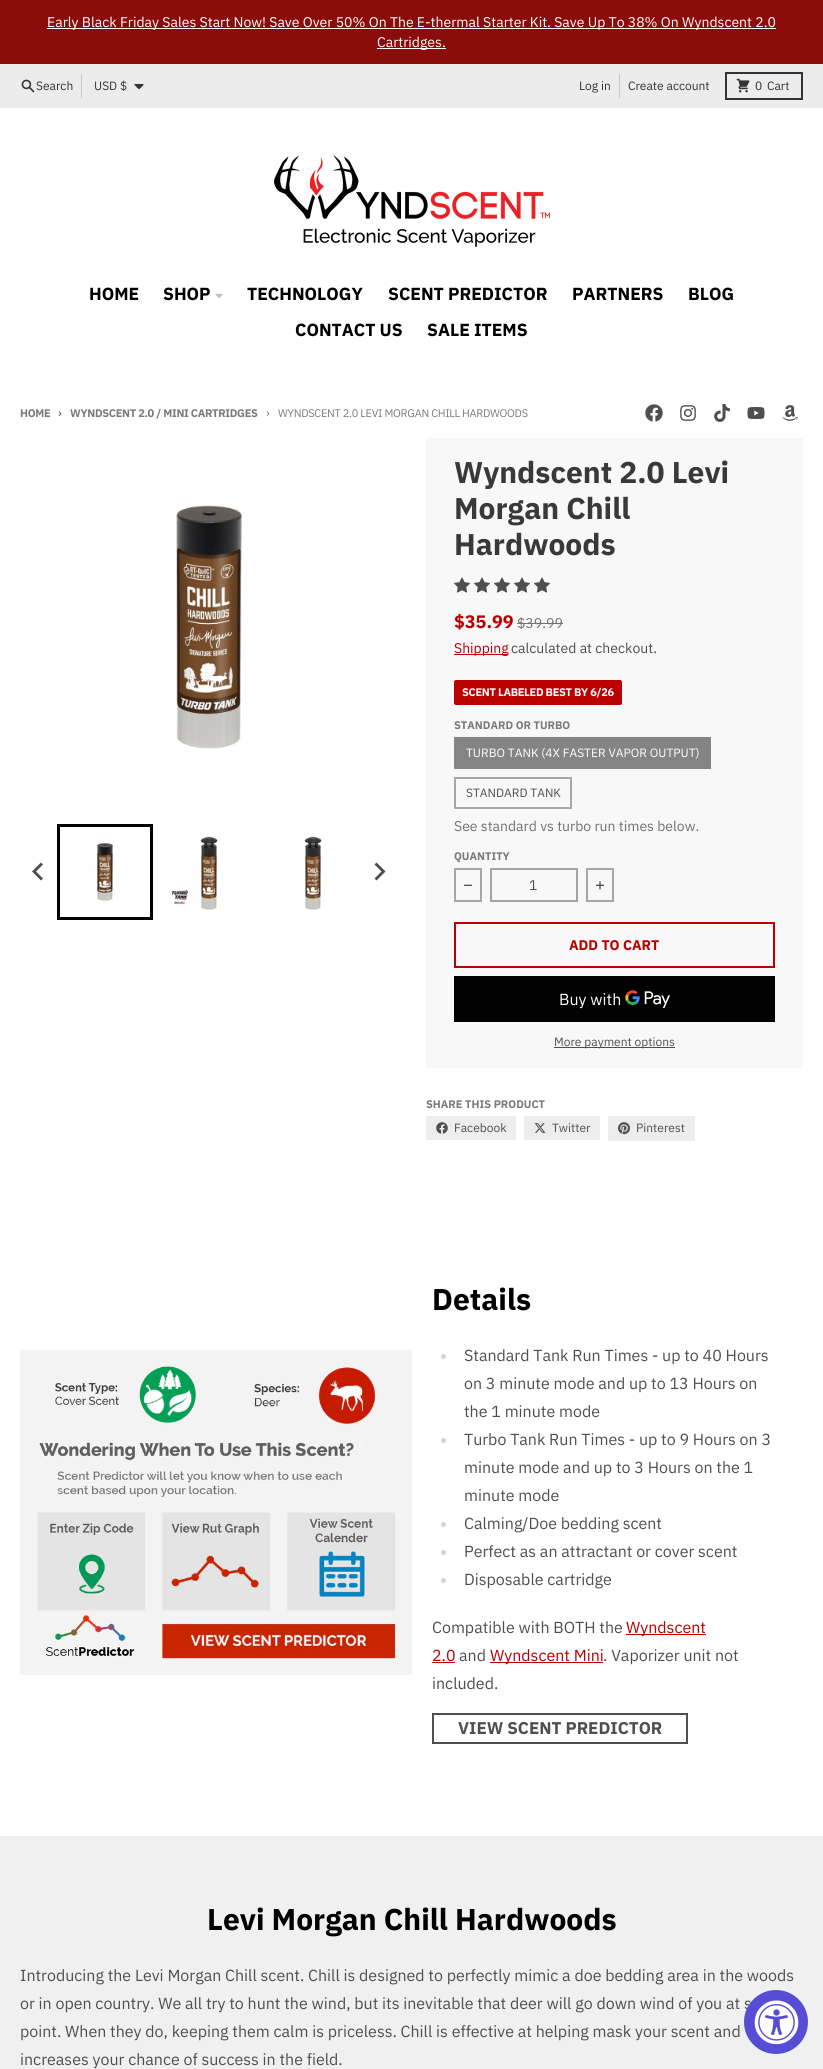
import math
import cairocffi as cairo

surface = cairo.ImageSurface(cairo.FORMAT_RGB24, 823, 2069)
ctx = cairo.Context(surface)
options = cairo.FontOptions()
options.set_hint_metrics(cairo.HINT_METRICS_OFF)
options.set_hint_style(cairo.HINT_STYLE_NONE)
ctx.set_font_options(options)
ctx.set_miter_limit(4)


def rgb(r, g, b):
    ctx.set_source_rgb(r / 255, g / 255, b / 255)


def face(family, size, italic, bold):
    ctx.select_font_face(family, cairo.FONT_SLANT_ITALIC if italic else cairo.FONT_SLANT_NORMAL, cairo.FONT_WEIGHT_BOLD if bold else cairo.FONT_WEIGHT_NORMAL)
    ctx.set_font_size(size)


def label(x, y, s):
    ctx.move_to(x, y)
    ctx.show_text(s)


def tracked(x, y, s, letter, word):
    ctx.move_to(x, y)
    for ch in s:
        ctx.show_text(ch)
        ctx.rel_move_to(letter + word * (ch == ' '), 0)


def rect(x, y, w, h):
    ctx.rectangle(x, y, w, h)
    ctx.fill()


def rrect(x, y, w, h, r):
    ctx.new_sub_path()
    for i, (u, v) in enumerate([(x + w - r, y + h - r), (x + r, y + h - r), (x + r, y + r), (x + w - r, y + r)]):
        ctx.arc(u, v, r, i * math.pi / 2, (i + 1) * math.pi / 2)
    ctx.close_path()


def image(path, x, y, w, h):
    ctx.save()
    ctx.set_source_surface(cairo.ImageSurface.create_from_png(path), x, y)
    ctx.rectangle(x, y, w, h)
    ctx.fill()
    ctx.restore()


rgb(255, 255, 255)
ctx.paint()
rgb(140, 11, 11)
rect(0, 0, 823, 64)
rgb(255, 255, 255)
rect(47, 28, 729, 1)
face('IBM Plex Sans', 14, 0, 0)
label(47, 27, 'Early Black Friday Sales Start Now! Save Over 50% On The E-thermal Starter Kit. Save Up To 38% On Wyndscent 2.0')
rect(377, 48, 69, 1)
label(377, 47, 'Cartridges.')
rgb(236, 236, 236)
rect(0, 64, 823, 44)
image('image0.png', 21, 79, 14, 14)
face('IBM Plex Sans', 12, 0, 0)
rgb(51, 51, 51)
label(36, 90, 'Search')
rgb(199, 199, 199)
rect(81, 74, 1, 24)
rgb(51, 51, 51)
label(94, 90, 'USD $')
image('image1.png', 134, 84, 10, 6)
label(579, 90, 'Log in')
rgb(199, 199, 199)
rect(619, 74, 1, 24)
rgb(51, 51, 51)
label(628, 90, 'Create account')
ctx.rectangle(726, 73, 76, 26)
ctx.stroke()
image('image2.png', 736, 78, 14, 15)
label(755, 90, '0')
label(767, 90, 'Cart')
image('image3.png', 274, 155, 276, 92)
face('IBM Plex Sans', 17.5, 0, 1)
rgb(0, 0, 0)
label(89, 300, 'HOME')
label(163, 300, 'SHOP')
image('image4.png', 215, 293, 8, 5)
label(247, 300, 'TECHNOLOGY')
label(388, 300, 'SCENT PREDICTOR')
label(572, 300, 'PARTNERS')
label(688, 300, 'BLOG')
label(295, 336, 'CONTACT US')
label(427, 336, 'SALE ITEMS')
face('IBM Plex Sans', 11, 0, 1)
rgb(123, 123, 123)
tracked(20, 417, 'HOME', -0.3, 0)
face('IBM Plex Sans', 12, 0, 1)
tracked(58, 417, '›', -0.3, 0)
face('IBM Plex Sans', 11, 0, 1)
tracked(70, 417, 'WYNDSCENT 2.0 / MINI CARTRIDGES', -0.3, 0)
face('IBM Plex Sans', 12, 0, 0)
tracked(266, 417, '›', -0.3, 0)
face('IBM Plex Sans', 11, 0, 0)
tracked(278, 417, 'WYNDSCENT 2.0 LEVI MORGAN CHILL HARDWOODS', -0.3, 0)
image('image5.png', 645, 404, 18, 18)
image('image6.png', 680, 405, 16, 16)
image('image7.png', 714, 404, 16, 18)
image('image8.png', 747, 407, 18, 12)
image('image9.png', 782, 405, 16, 16)
image('image10.png', 176, 505, 68, 244)
ctx.rectangle(58.5, 825.5, 93, 93)
rgb(0, 0, 0)
ctx.set_line_width(3)
ctx.stroke()
image('image11.png', 94, 843, 22, 60)
image('image12.png', 168, 836, 52, 75)
image('image13.png', 304, 835, 20, 76)
rgb(77, 77, 77)
ctx.new_path()
ctx.move_to(41, 862.5)
ctx.line_to(43, 864.5)
ctx.line_to(36, 871.5)
ctx.line_to(43, 878.5)
ctx.line_to(41, 880.5)
ctx.line_to(32, 871.5)
ctx.close_path()
ctx.fill()
ctx.new_path()
ctx.move_to(376.5, 862.5)
ctx.line_to(374.5, 864.5)
ctx.line_to(381.5, 871.5)
ctx.line_to(374.5, 878.5)
ctx.line_to(376.5, 880.5)
ctx.line_to(385.5, 871.5)
ctx.close_path()
ctx.fill()
rgb(248, 248, 248)
rect(426, 438, 377, 630)
face('IBM Plex Sans', 30, 0, 1)
rgb(57, 57, 57)
label(454, 483, 'Wyndscent 2.0 Levi')
label(454, 519, 'Morgan Chill')
label(454, 555, 'Hardwoods')
image('image14.png', 454, 577, 16, 16)
image('image14.png', 474, 577, 16, 16)
image('image14.png', 494, 577, 16, 16)
image('image14.png', 514, 577, 16, 16)
image('image14.png', 534, 577, 16, 16)
face('IBM Plex Sans', 18, 0, 1)
rgb(187, 0, 0)
label(454, 628, '$35.99')
face('IBM Plex Sans', 14, 0, 0)
rgb(114, 114, 114)
label(517, 628, '$39.99')
rect(517, 623, 46, 1)
rgb(187, 0, 0)
rect(454, 654, 54, 1)
label(454, 653, 'Shipping')
rgb(79, 79, 79)
label(511, 653, 'calculated at checkout.')
rgb(187, 0, 0)
rrect(454, 680, 168, 25, 2)
ctx.fill()
face('IBM Plex Sans', 11, 0, 1)
rgb(255, 255, 255)
tracked(462, 696, 'SCENT LABELED BEST BY 6/26', -0.3, 0)
rgb(123, 123, 123)
label(454, 729, 'STANDARD OR TURBO')
rgb(132, 132, 132)
rect(454, 737, 257, 32)
face('IBM Plex Sans', 12, 0, 0)
rgb(255, 255, 255)
label(466, 757, 'TURBO TANK (4X FASTER VAPOR OUTPUT)')
ctx.rectangle(455, 778, 116, 30)
rgb(167, 167, 167)
ctx.set_line_width(2)
ctx.stroke()
rgb(79, 79, 79)
label(466, 797, 'STANDARD TANK')
face('IBM Plex Sans', 14, 0, 0)
rgb(114, 114, 114)
label(454, 831, 'See standard vs turbo run times below.')
face('IBM Plex Sans', 11, 0, 1)
rgb(123, 123, 123)
label(454, 860, 'QUANTITY')
ctx.rectangle(455, 869, 26, 32)
rgb(167, 167, 167)
ctx.stroke()
image('image15.png', 464, 884, 8, 2)
ctx.rectangle(491, 869, 86, 32)
rgb(164, 164, 164)
ctx.stroke()
face('IBM Plex Sans', 14, 0, 0)
rgb(79, 79, 79)
label(529, 890, '1')
ctx.rectangle(587, 869, 26, 32)
rgb(167, 167, 167)
ctx.stroke()
image('image16.png', 596, 881, 8, 9)
ctx.rectangle(455, 923, 319, 44)
rgb(187, 0, 0)
ctx.stroke()
face('IBM Plex Sans', 14, 0, 1)
label(569, 950, 'ADD TO CART')
rgb(0, 0, 0)
rect(454, 976, 321, 46)
face('IBM Plex Sans', 16, 0, 0)
rgb(255, 255, 255)
label(559, 1005, 'Buy with')
image('image17.png', 625, 990, 45, 18)
rgb(79, 79, 79)
rect(554, 1047, 121, 1)
face('IBM Plex Sans', 12, 0, 0)
label(554, 1046, 'More payment options')
face('IBM Plex Sans', 11, 0, 1)
rgb(123, 123, 123)
label(426, 1108, 'SHARE THIS PRODUCT')
rgb(237, 237, 237)
rect(426, 1116, 90, 24)
image('image18.png', 436, 1122, 12, 12)
face('IBM Plex Sans', 12, 0, 0)
rgb(79, 79, 79)
label(454, 1132, 'Facebook')
rgb(237, 237, 237)
rect(524, 1116, 76, 24)
image('image19.png', 534, 1123, 12, 10)
rgb(79, 79, 79)
label(552, 1132, 'Twitter')
rgb(237, 237, 237)
rect(608, 1116, 87, 25)
image('image20.png', 618, 1122, 12, 13)
rgb(79, 79, 79)
label(636, 1132, 'Pinterest')
rgb(237, 237, 237)
rect(0, 1836, 823, 1)
image('image21.png', 20, 1350, 392, 325)
face('IBM Plex Sans', 30, 0, 1)
rgb(0, 0, 0)
label(432, 1310, 'Details')
rgb(209, 213, 219)
ctx.new_path()
ctx.arc(443.5, 1356.5, 2.5, 0, 2 * math.pi)
ctx.fill()
face('IBM Plex Sans', 16, 0, 0)
rgb(79, 79, 79)
label(464, 1361, 'Standard Tank Run Times - up to 40 Hours')
label(464, 1389, 'on 3 minute mode and up to 13 Hours on')
label(464, 1417, 'the 1 minute mode')
rgb(209, 213, 219)
ctx.new_path()
ctx.arc(443.5, 1440.5, 2.5, 0, 2 * math.pi)
ctx.fill()
rgb(79, 79, 79)
label(464, 1445, 'Turbo Tank Run Times - up to 9 Hours on 3')
label(464, 1473, 'minute mode and up to 3 Hours on the 1')
label(464, 1501, 'minute mode')
rgb(209, 213, 219)
ctx.new_path()
ctx.arc(443.5, 1524.5, 2.5, 0, 2 * math.pi)
ctx.fill()
rgb(79, 79, 79)
label(464, 1529, 'Calming/Doe bedding scent')
rgb(209, 213, 219)
ctx.new_path()
ctx.arc(443.5, 1552.5, 2.5, 0, 2 * math.pi)
ctx.fill()
rgb(79, 79, 79)
label(464, 1557, 'Perfect as an attractant or cover scent')
rgb(209, 213, 219)
ctx.new_path()
ctx.arc(443.5, 1580.5, 2.5, 0, 2 * math.pi)
ctx.fill()
rgb(79, 79, 79)
label(464, 1585, 'Disposable cartridge')
label(432, 1633, 'Compatible with BOTH the')
rgb(187, 0, 0)
rect(626, 1634, 80, 1)
label(626, 1633, 'Wyndscent')
label(432, 1661, '2.0')
rect(432, 1662, 23, 1)
rgb(79, 79, 79)
label(459, 1661, 'and')
rgb(187, 0, 0)
rect(490, 1662, 113, 1)
label(490, 1661, 'Wyndscent Mini')
rgb(79, 79, 79)
label(603, 1661, '. Vaporizer unit not')
label(432, 1689, 'included.')
ctx.rectangle(433, 1714, 254, 29)
ctx.stroke()
face('IBM Plex Sans', 17, 0, 1)
label(458, 1734, 'VIEW SCENT PREDICTOR')
rgb(240, 240, 240)
rect(0, 1837, 823, 232)
face('IBM Plex Sans', 30, 0, 1)
rgb(0, 0, 0)
label(207, 1930, 'Levi Morgan Chill Hardwoods')
face('IBM Plex Sans', 16, 0, 0)
rgb(79, 79, 79)
label(20, 1981, 'Introducing the Levi Morgan Chill scent. Chill is designed to perfectly mimic a doe bedding area in the woods')
label(20, 2009, 'or in open country. We all try to hunt the wind, but its inevitable that deer will go down wind of you at s')
label(20, 2037, 'point. When they do, keeping them calm is priceless. Chill is effective at helping mask your scent and')
label(20, 2065, 'increases your chance of success in the field.')
rgb(87, 76, 213)
ctx.new_path()
ctx.arc(776, 2022, 32, 0, 2 * math.pi)
ctx.fill()
image('image22.png', 754, 2000, 45, 45)
surface.write_to_png('render.png')
